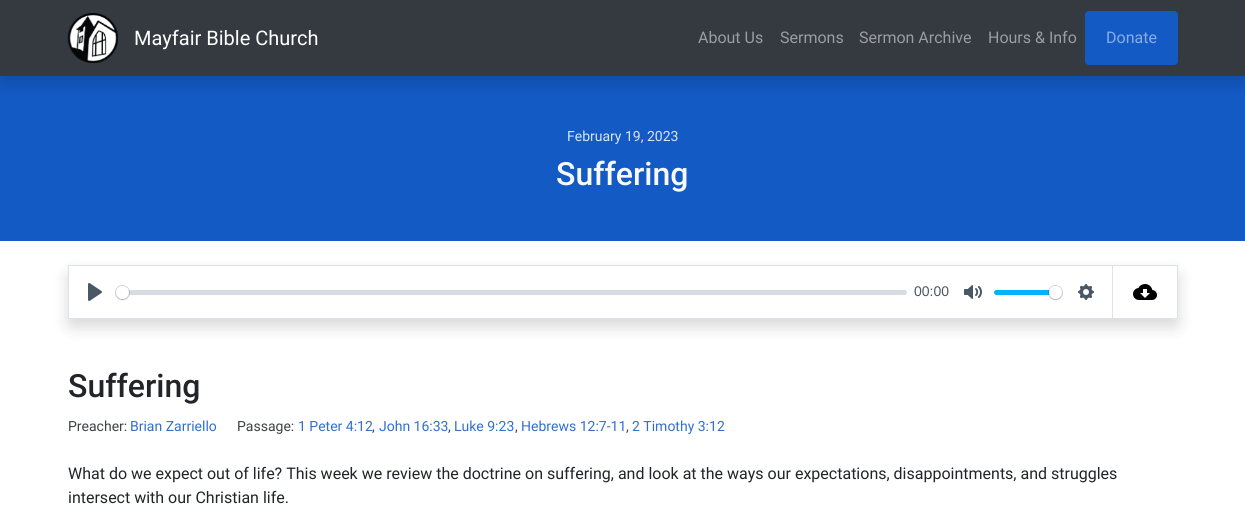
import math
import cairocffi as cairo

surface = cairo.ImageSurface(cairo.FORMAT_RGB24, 1245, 519)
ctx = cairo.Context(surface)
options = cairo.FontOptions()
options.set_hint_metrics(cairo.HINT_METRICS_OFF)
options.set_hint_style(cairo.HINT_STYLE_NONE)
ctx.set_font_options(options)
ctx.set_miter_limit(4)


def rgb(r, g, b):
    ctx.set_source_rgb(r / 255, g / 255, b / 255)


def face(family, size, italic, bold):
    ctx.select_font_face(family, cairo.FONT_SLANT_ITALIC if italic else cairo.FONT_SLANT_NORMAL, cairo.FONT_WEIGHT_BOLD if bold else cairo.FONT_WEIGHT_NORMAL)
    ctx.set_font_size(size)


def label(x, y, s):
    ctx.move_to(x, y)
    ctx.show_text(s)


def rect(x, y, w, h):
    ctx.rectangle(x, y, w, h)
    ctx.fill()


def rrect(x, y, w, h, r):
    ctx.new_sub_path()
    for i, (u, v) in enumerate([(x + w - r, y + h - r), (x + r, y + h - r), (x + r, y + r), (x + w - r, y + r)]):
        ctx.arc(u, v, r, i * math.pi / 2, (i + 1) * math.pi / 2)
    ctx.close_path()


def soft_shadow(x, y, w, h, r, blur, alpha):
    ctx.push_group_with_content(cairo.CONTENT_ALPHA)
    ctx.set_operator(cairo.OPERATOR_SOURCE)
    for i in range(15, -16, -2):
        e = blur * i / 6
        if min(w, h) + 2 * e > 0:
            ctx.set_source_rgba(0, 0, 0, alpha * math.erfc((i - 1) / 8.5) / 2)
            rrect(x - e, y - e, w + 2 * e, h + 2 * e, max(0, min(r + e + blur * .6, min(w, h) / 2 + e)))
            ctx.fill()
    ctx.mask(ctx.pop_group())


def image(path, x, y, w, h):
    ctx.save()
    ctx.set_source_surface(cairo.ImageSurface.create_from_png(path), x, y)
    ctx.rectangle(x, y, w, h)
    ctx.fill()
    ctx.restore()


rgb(255, 255, 255)
ctx.paint()
rgb(19, 90, 197)
rect(0, 76, 1245, 165)
rgb(0, 0, 0)
soft_shadow(0, 8, 1245, 76, 0, 8, 0.15)
rgb(52, 58, 64)
rect(0, 0, 1245, 76)
image('image0.png', 67, 13, 51, 50)
face('Roboto', 20, 0, 0)
rgb(255, 255, 255)
label(134, 45, 'Mayfair Bible Church')
face('Roboto', 16, 0, 0)
rgb(154, 157, 160)
label(698, 43, 'About Us')
label(780, 43, 'Sermons')
label(859, 43, 'Sermon Archive')
label(988, 43, 'Hours & Info')
rgb(19, 90, 197)
rrect(1085.5, 11.5, 92, 53, 3.5)
ctx.fill_preserve()
ctx.set_line_width(1)
ctx.stroke()
rgb(137, 173, 226)
label(1106, 43, 'Donate')
face('Roboto', 14, 0, 0)
rgb(218, 228, 243)
label(567, 141, 'February 19, 2023')
face('Roboto Medium', 32, 0, 0)
rgb(248, 249, 250)
label(556, 185, 'Suffering')
ctx.save()
ctx.set_fill_rule(cairo.FILL_RULE_EVEN_ODD)
ctx.new_path()
ctx.move_to(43, 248)
ctx.line_to(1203, 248)
ctx.line_to(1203, 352)
ctx.line_to(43, 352)
ctx.close_path()
ctx.move_to(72, 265)
ctx.line_to(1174, 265)
ctx.curve_to(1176, 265, 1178, 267, 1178, 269)
ctx.line_to(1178, 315)
ctx.curve_to(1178, 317, 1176, 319, 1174, 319)
ctx.line_to(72, 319)
ctx.curve_to(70, 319, 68, 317, 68, 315)
ctx.line_to(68, 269)
ctx.curve_to(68, 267, 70, 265, 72, 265)
ctx.close_path()
ctx.clip()
rgb(0, 0, 0)
soft_shadow(68, 273, 1110, 54, 4, 8, 0.15)
ctx.restore()
ctx.rectangle(68.5, 265.5, 1044, 53)
rgb(219, 227, 232)
ctx.stroke()
image('image1.png', 88, 283, 14, 18)
ctx.set_source_rgba(0.757, 0.788, 0.82, 0.66)
rrect(116, 290, 791, 5, 2.5)
ctx.fill()
ctx.arc(122.5, 292.5, 7, 0, 2 * math.pi)
ctx.set_source_rgba(0.137, 0.161, 0.184, 0.2)
ctx.stroke()
rgb(0, 0, 0)
soft_shadow(116, 287, 13, 13, 6.5, 0.5, 0.15)
rgb(255, 255, 255)
ctx.arc(122.5, 292.5, 6.5, 0, 2 * math.pi)
ctx.fill()
face('Liberation Sans', 14, 0, 0)
rgb(74, 87, 100)
label(914, 296, '00:00')
image('image2.png', 964, 285, 18, 14)
rgb(0, 179, 255)
rrect(994, 290, 68, 5, 2.5)
ctx.fill()
ctx.arc(1055.5, 292.5, 7, 0, 2 * math.pi)
ctx.set_source_rgba(0.137, 0.161, 0.184, 0.2)
ctx.stroke()
rgb(0, 0, 0)
soft_shadow(1049, 287, 13, 13, 6.5, 0.5, 0.15)
rgb(255, 255, 255)
ctx.arc(1055.5, 292.5, 6.5, 0, 2 * math.pi)
ctx.fill()
image('image3.png', 1078, 284, 16, 16)
rgb(219, 227, 232)
rect(1113, 265, 65, 1)
rect(1177, 265, 1, 54)
rect(1113, 318, 65, 1)
image('image4.png', 1133, 284, 24, 16)
face('Roboto Medium', 32, 0, 0)
rgb(33, 37, 41)
label(68, 397, 'Suffering')
face('Roboto', 14, 0, 0)
rgb(62, 65, 69)
label(68, 431, 'Preacher:')
rgb(50, 111, 205)
label(130, 431, 'Brian Zarriello')
rgb(62, 65, 69)
label(237, 431, 'Passage:')
rgb(50, 111, 205)
label(298, 431, '1 Peter 4:12')
rgb(62, 65, 69)
label(372, 431, ',')
rgb(50, 111, 205)
label(379, 431, 'John 16:33')
rgb(62, 65, 69)
label(448, 431, ',')
rgb(50, 111, 205)
label(454, 431, 'Luke 9:23')
rgb(62, 65, 69)
label(515, 431, ',')
rgb(50, 111, 205)
label(521, 431, 'Hebrews 12:7-11')
rgb(62, 65, 69)
label(626, 431, ',')
rgb(50, 111, 205)
label(632, 431, '2 Timothy 3:12')
face('Roboto', 16, 0, 0)
rgb(33, 37, 41)
label(68, 479, 'What do we expect out of life? This week we review the doctrine on suffering, and look at the ways our expectations, disappointments, and struggles')
label(68, 503, 'intersect with our Christian life.')
surface.write_to_png('render.png')
